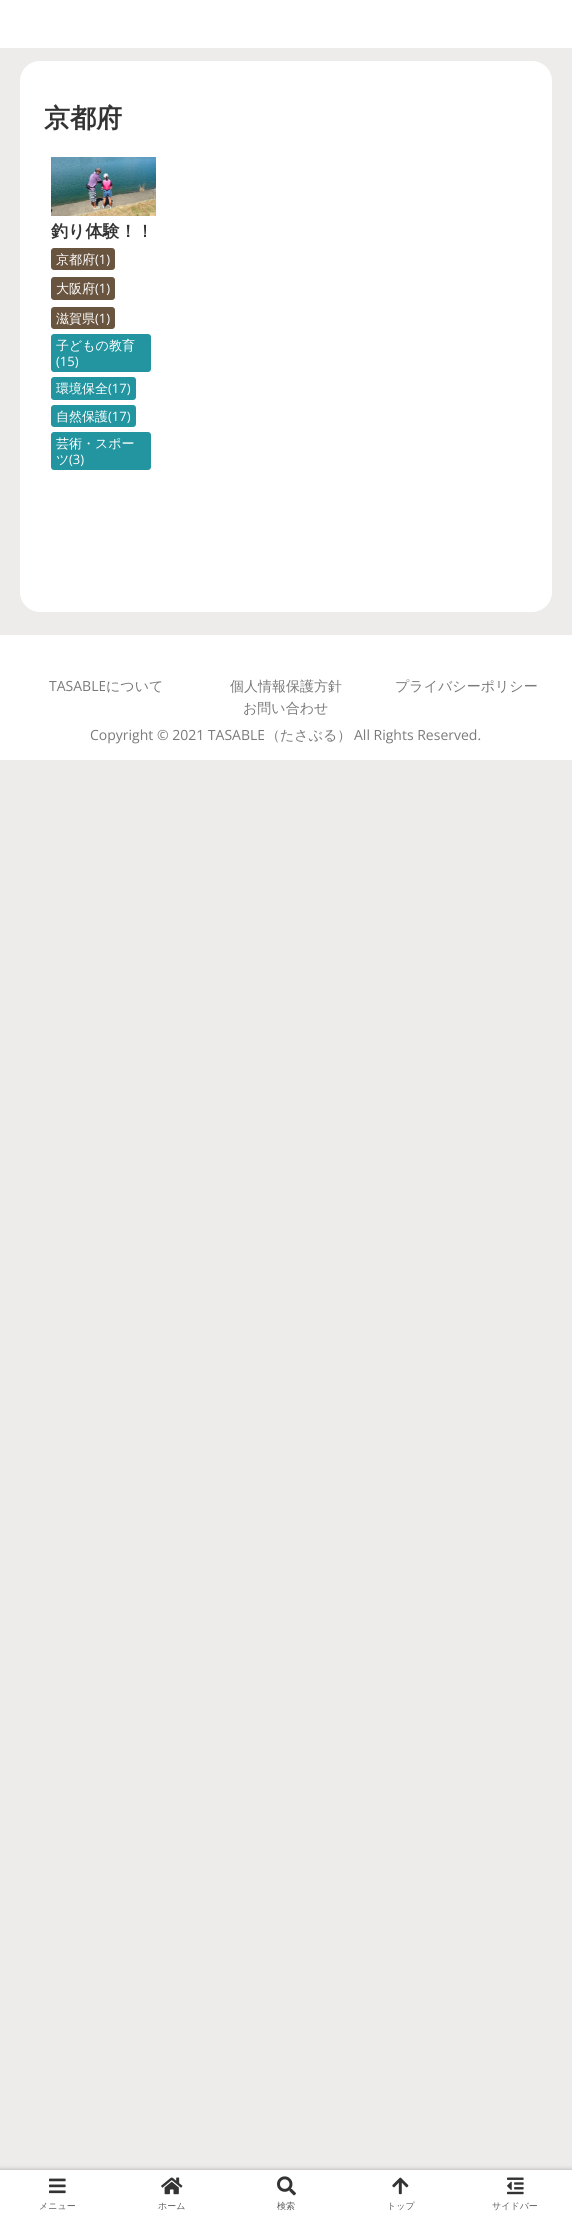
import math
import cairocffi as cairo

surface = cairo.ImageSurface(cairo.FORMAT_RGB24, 572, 2220)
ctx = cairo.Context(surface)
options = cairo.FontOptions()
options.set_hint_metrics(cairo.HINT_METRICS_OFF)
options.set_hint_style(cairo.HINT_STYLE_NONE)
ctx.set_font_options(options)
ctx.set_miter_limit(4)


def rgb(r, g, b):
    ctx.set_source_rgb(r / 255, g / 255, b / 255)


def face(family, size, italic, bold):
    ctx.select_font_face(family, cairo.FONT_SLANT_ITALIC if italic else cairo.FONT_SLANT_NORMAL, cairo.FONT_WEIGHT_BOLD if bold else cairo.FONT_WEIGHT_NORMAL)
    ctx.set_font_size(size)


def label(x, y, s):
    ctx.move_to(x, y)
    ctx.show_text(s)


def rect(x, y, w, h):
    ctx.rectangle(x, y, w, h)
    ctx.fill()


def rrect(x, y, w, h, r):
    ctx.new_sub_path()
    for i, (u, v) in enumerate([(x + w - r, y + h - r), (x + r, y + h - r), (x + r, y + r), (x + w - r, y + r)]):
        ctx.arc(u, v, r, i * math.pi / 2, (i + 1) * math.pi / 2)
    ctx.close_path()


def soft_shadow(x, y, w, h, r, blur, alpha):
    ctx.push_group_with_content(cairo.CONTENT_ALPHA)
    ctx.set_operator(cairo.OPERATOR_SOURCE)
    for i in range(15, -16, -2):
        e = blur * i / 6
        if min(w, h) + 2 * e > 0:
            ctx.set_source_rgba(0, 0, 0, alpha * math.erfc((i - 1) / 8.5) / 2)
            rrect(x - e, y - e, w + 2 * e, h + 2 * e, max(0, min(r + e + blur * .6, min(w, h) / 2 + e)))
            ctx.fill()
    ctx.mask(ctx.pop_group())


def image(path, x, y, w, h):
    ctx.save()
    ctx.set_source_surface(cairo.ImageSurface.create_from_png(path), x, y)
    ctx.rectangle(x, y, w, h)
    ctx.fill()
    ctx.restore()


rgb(237, 236, 234)
ctx.paint()
rgb(255, 255, 255)
rect(0, 0, 572, 48)
rrect(20, 61, 532, 551, 20)
ctx.fill()
face('WenQuanYi Zen Hei', 26, 0, 1)
rgb(51, 51, 51)
label(44, 127, '京都府')
image('image0.png', 51, 157, 105, 59)
face('WenQuanYi Zen Hei', 17, 0, 1)
label(51, 237, '釣り体験！！')
rgb(105, 84, 63)
rrect(51, 248, 64, 22, 3)
ctx.fill()
face('WenQuanYi Zen Hei Medium', 13, 0, 0)
rgb(255, 255, 255)
label(56, 264, '京都府')
face('Open Sans', 13, 0, 0)
label(95, 264, '(1)')
rgb(105, 84, 63)
rrect(51, 277, 64, 23, 3)
ctx.fill()
face('WenQuanYi Zen Hei Medium', 13, 0, 0)
rgb(255, 255, 255)
label(56, 293, '大阪府')
face('Open Sans', 13, 0, 0)
label(95, 293, '(1)')
rgb(105, 84, 63)
rrect(51, 307, 64, 22, 3)
ctx.fill()
face('WenQuanYi Zen Hei Medium', 13, 0, 0)
rgb(255, 255, 255)
label(56, 323, '滋賀県')
face('Open Sans', 13, 0, 0)
label(95, 323, '(1)')
rgb(34, 149, 160)
rrect(51, 334, 100, 38, 3)
ctx.fill()
face('WenQuanYi Zen Hei Medium', 13, 0, 0)
rgb(255, 255, 255)
label(56, 350, '子どもの教育')
face('Open Sans', 13, 0, 0)
label(56, 366, '(15)')
rgb(34, 149, 160)
rrect(51, 377, 85, 23, 3)
ctx.fill()
face('WenQuanYi Zen Hei Medium', 13, 0, 0)
rgb(255, 255, 255)
label(56, 393, '環境保全')
face('Open Sans', 13, 0, 0)
label(108, 393, '(17)')
rgb(34, 149, 160)
rrect(51, 405, 85, 22, 3)
ctx.fill()
face('WenQuanYi Zen Hei Medium', 13, 0, 0)
rgb(255, 255, 255)
label(56, 421, '自然保護')
face('Open Sans', 13, 0, 0)
label(108, 421, '(17)')
rgb(34, 149, 160)
rrect(51, 432, 100, 38, 3)
ctx.fill()
face('WenQuanYi Zen Hei Medium', 13, 0, 0)
rgb(255, 255, 255)
label(56, 448, '芸術・スポー')
label(56, 464, 'ツ')
face('Open Sans', 13, 0, 0)
label(69, 464, '(3)')
rect(0, 635, 572, 125)
face('Open Sans', 14, 0, 0)
rgb(122, 122, 122)
label(49, 691, 'TASABLE')
face('WenQuanYi Zen Hei Medium', 14, 0, 0)
label(106, 691, 'について')
label(230, 691, '個人情報保護方針')
label(395, 691, 'プライバシーポリシー')
label(243, 713, 'お問い合わせ')
face('Open Sans', 14, 0, 0)
label(90, 740, 'Copyright © 2021 TASABLE')
face('WenQuanYi Zen Hei Medium', 14, 0, 0)
label(266, 740, '（たさぶる）')
face('Open Sans', 14, 0, 0)
label(354, 740, 'All Rights Reserved.')
rgb(169, 169, 169)
soft_shadow(0, 2170, 572, 50, 0, 2.5, 1)
rgb(255, 255, 255)
rect(0, 2170, 572, 50)
image('image1.png', 49, 2178, 17, 16)
face('WenQuanYi Zen Hei Medium', 9, 0, 0)
rgb(92, 92, 92)
label(39, 2209, 'メニュー')
image('image2.png', 161, 2177, 22, 18)
label(158, 2209, 'ホーム')
image('image3.png', 277, 2176, 19, 20)
label(277, 2209, '検索')
image('image4.png', 392, 2177, 17, 18)
label(387, 2209, 'トップ')
image('image5.png', 507, 2177, 17, 18)
label(492, 2209, 'サイドバー')
surface.write_to_png('render.png')
